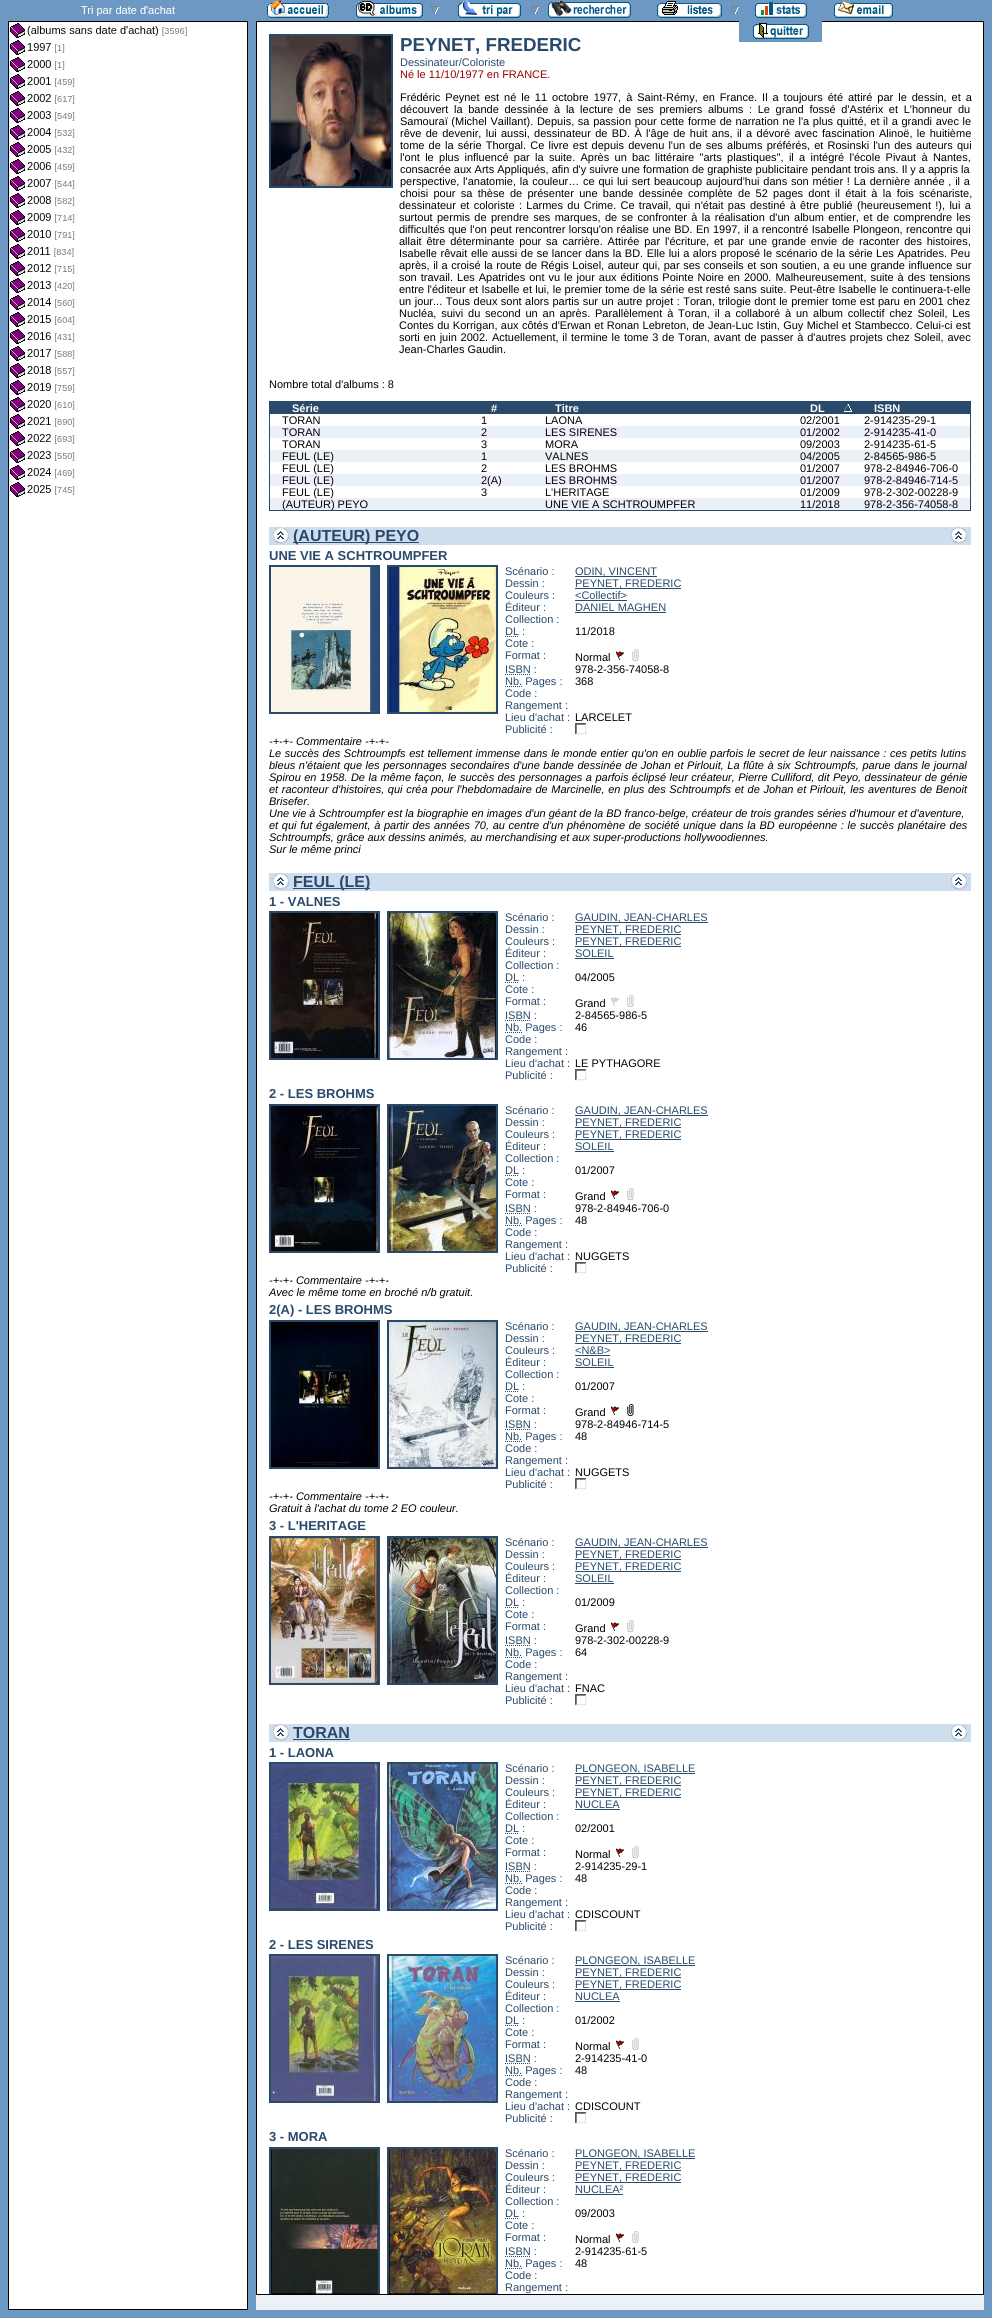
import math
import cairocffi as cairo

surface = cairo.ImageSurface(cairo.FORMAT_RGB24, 992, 2318)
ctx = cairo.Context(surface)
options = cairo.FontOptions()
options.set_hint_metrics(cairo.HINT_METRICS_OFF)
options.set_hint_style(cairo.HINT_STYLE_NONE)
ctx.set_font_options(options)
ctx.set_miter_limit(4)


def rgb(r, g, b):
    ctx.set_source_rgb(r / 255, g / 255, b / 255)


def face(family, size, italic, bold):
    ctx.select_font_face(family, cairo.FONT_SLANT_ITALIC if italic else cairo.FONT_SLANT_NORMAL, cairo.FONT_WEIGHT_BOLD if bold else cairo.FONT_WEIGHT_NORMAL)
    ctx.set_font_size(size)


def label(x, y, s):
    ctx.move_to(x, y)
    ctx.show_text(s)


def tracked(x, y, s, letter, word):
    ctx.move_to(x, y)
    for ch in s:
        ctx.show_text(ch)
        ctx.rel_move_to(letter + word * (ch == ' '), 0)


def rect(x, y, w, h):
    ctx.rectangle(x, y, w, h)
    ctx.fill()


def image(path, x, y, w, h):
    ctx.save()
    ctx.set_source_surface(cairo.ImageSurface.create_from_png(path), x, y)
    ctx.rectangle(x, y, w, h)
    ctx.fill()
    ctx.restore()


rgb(109, 152, 195)
ctx.paint()
image('image0.png', 8, 6, 240, 2304)
image('image1.png', 267, 0, 62, 18)
image('image2.png', 431, 6, 8, 8)
image('image3.png', 356, 1, 67, 17)
image('image2.png', 531, 6, 8, 8)
image('image4.png', 458, 0, 63, 18)
image('image5.png', 548, 1, 83, 17)
image('image2.png', 731, 6, 8, 8)
image('image6.png', 657, 1, 65, 17)
image('image7.png', 755, 2, 52, 16)
image('image8.png', 834, 1, 59, 17)
rgb(255, 255, 255)
ctx.rectangle(256.5, 21.5, 727, 2273)
ctx.fill_preserve()
rgb(0, 0, 0)
ctx.set_line_width(1)
ctx.stroke()
rgb(109, 152, 195)
rect(739, 21, 83, 21)
image('image9.png', 753, 23, 56, 16)
ctx.rectangle(270, 35, 122, 152)
rgb(41, 74, 107)
ctx.set_line_width(2)
ctx.stroke()
image('image10.png', 271, 36, 120, 150)
face('Liberation Sans', 18.75, 0, 1)
label(400, 51, 'PEYNET, FREDERIC')
face('Liberation Sans', 11, 0, 0)
label(400, 66, 'Dessinateur/Coloriste')
rgb(153, 0, 0)
label(400, 78, 'Né le 11/10/1977 en FRANCE.')
rgb(0, 0, 0)
tracked(400, 101, 'Frédéric Peynet est né le 11 octobre 1977, à Saint-Rémy, en France. Il a toujours été attiré par le dessin, et a', 0, 1.9)
tracked(400, 113, 'découvert la bande dessinée à la lecture de ses premiers albums : Le grand fossé d\'Astérix et L\'honneur du', 0, 2.6)
tracked(400, 125, 'Samouraï (Michel Vaillant). Depuis, sa passion pour cette forme de narration ne l\'a plus quitté, et il a grandi avec le', 0, 0.6)
tracked(400, 137, 'rêve de devenir, lui aussi, dessinateur de BD. À l\'âge de huit ans, il a dévoré avec fascination Alinoë, le huitième', 0, 1.25)
tracked(400, 149, 'tome de la série Thorgal. Ce livre est depuis devenu l\'un de ses albums préférés, et Rosinski l\'un des auteurs qui', 0, 1.1)
tracked(400, 161, 'l\'ont le plus influencé par la suite. Après un bac littéraire "arts plastiques", il a intégré l\'école Pivaut à Nantes,', 0, 2.25)
label(400, 173, 'consacrée aux Arts Appliqués, afin d\'y suivre une formation de graphiste publicitaire pendant trois ans. Il y a appris la')
tracked(400, 185, 'perspective, l\'anatomie, la couleur… ce qui lui sert beaucoup aujourd\'hui dans son métier ! La dernière année , il a', 0, 0.75)
tracked(400, 197, 'choisi pour sa thèse de présenter une bande dessinée complète de 52 pages dont il était à la fois scénariste,', 0, 2.25)
tracked(399, 209, 'dessinateur et coloriste : Larmes du Crime. Ce travail, qui n\'était pas destiné à être publié (heureusement !), lui a', 0, 1.25)
tracked(399, 221, 'surtout permis de prendre ses marques, de se confronter à la réalisation d\'un album entier, et de comprendre les', 0, 1.3)
tracked(399, 233, 'difficultés que l\'on peut rencontrer lorsqu\'on réalise une BD. En 1997, il a rencontré Isabelle Plongeon, rencontre qui', 0, 0.4)
tracked(399, 245, 'allait être déterminante pour sa carrière. Attirée par l\'écriture, et par une grande envie de raconter des histoires,', 0, 1.75)
tracked(399, 257, 'Isabelle rêvait elle aussi de se lancer dans la BD. Elle lui a alors proposé le scénario de la série Les Apatrides. Peu', 0, 0.5)
tracked(399, 269, 'après, il a croisé la route de Régis Loisel, auteur qui, par ses conseils et son soutien, a eu une grande influence sur', 0, 0.5)
tracked(399, 281, 'son travail. Les Apatrides ont vu le jour aux éditions Pointe Noire en 2000. Malheureusement, suite à des tensions', 0, 0.9)
tracked(399, 293, 'entre l\'éditeur et Isabelle et lui, le premier tome de la série est resté sans suite. Peut-être Isabelle le continuera-t-elle', 0, 0.3)
tracked(399, 305, 'un jour... Tous deux sont alors partis sur un autre projet : Toran, trilogie dont le premier tome est paru en 2001 chez', 0, 0.4)
tracked(399, 317, 'Nucléa, suivi du second un an après. Parallèlement à Toran, il a collaboré à un album collectif chez Soleil, Les', 0, 1.8)
tracked(399, 329, 'Contes du Korrigan, aux côtés d\'Erwan et Ronan Lebreton, de Jean-Luc Istin, Guy Michel et Stambecco. Celui-ci est', 0, 0.3)
tracked(399, 341, 'sorti en juin 2002. Actuellement, il termine le tome 3 de Toran, avant de passer à d\'autres projets chez Soleil, avec', 0, 0.75)
label(399, 353, 'Jean-Charles Gaudin.')
label(269, 388, 'Nombre total d\'albums : 8')
ctx.rectangle(269.5, 401.5, 701, 109)
rgb(41, 74, 107)
ctx.set_line_width(1)
ctx.stroke()
rect(270, 402, 700, 12)
face('Liberation Sans', 11, 0, 1)
rgb(255, 255, 255)
label(292, 412, 'Série')
label(491, 412, '#')
label(555, 412, 'Titre')
image('image11.png', 844, 404, 8, 8)
label(810, 412, 'DL')
label(874, 412, 'ISBN')
face('Liberation Sans', 11, 0, 0)
rgb(0, 0, 0)
label(282, 424, 'TORAN')
label(481, 424, '1')
label(545, 424, 'LAONA')
label(800, 424, '02/2001')
label(864, 424, '2-914235-29-1')
rgb(235, 241, 247)
rect(270, 426, 700, 12)
rgb(0, 0, 0)
label(282, 436, 'TORAN')
label(481, 436, '2')
label(545, 436, 'LES SIRENES')
label(800, 436, '01/2002')
label(864, 436, '2-914235-41-0')
label(282, 448, 'TORAN')
label(481, 448, '3')
label(545, 448, 'MORA')
label(800, 448, '09/2003')
label(864, 448, '2-914235-61-5')
rgb(235, 241, 247)
rect(270, 450, 700, 12)
rgb(0, 0, 0)
label(282, 460, 'FEUL (LE)')
label(481, 460, '1')
label(545, 460, 'VALNES')
label(800, 460, '04/2005')
label(864, 460, '2-84565-986-5')
rgb(235, 241, 247)
rect(270, 474, 700, 12)
rgb(0, 0, 0)
label(282, 472, 'FEUL (LE)')
label(481, 472, '2')
label(545, 472, 'LES BROHMS')
label(800, 472, '01/2007')
label(864, 472, '978-2-84946-706-0')
label(282, 484, 'FEUL (LE)')
label(481, 484, '2(A)')
label(545, 484, 'LES BROHMS')
label(800, 484, '01/2007')
label(864, 484, '978-2-84946-714-5')
rgb(235, 241, 247)
rect(270, 498, 700, 12)
rgb(0, 0, 0)
label(282, 496, 'FEUL (LE)')
label(481, 496, '3')
label(545, 496, 'L\'HERITAGE')
label(800, 496, '01/2009')
label(864, 496, '978-2-302-00228-9')
label(282, 508, '(AUTEUR) PEYO')
label(545, 508, 'UNE VIE A SCHTROUMPFER')
label(800, 508, '11/2018')
label(864, 508, '978-2-356-74058-8')
rgb(206, 222, 239)
rect(269, 527, 702, 18)
image('image12.png', 273, 527, 16, 17)
image('image12.png', 951, 527, 16, 17)
rgb(41, 74, 107)
rect(293, 542, 126, 1)
face('Liberation Sans', 16, 0, 1)
label(293, 541, '(AUTEUR) PEYO')
face('Liberation Sans', 13, 0, 1)
label(269, 560, 'UNE VIE A SCHTROUMPFER')
ctx.rectangle(270, 566, 109, 147)
ctx.set_line_width(2)
ctx.stroke()
image('image13.png', 271, 567, 107, 145)
ctx.rectangle(388, 566, 109, 147)
ctx.stroke()
image('image14.png', 389, 567, 107, 145)
face('Liberation Sans', 11, 0, 0)
label(505, 575, 'Scénario :')
rect(575, 576, 82, 1)
label(575, 575, 'ODIN, VINCENT')
label(505, 587, 'Dessin :')
rect(575, 588, 106, 1)
label(575, 587, 'PEYNET, FREDERIC')
label(505, 599, 'Couleurs :')
label(575, 599, '<Collectif>')
rect(575, 600, 52, 1)
label(505, 611, 'Éditeur :')
label(575, 611, 'DANIEL MAGHEN')
rect(575, 612, 91, 1)
label(505, 623, 'Collection :')
label(505, 635, 'DL :')
ctx.new_path()
ctx.move_to(505, 636.5)
ctx.line_to(519, 636.5)
ctx.set_line_width(1)
ctx.set_dash([1, 1])
ctx.stroke()
rgb(0, 0, 0)
label(575, 635, '11/2018')
rgb(41, 74, 107)
label(505, 647, 'Cote :')
label(505, 659, 'Format :')
rgb(0, 0, 0)
label(575, 661, 'Normal')
image('image15.png', 616, 651, 8, 9)
image('image16.png', 632, 649, 7, 12)
rgb(41, 74, 107)
label(505, 673, 'ISBN :')
ctx.new_path()
ctx.move_to(505, 674.5)
ctx.line_to(530.5, 674.5)
ctx.stroke()
rgb(0, 0, 0)
label(575, 673, '978-2-356-74058-8')
ctx.new_path()
ctx.move_to(505, 686.5)
ctx.line_to(522, 686.5)
rgb(41, 74, 107)
ctx.stroke()
label(505, 685, 'Nb. Pages :')
rgb(0, 0, 0)
label(575, 685, '368')
rgb(41, 74, 107)
label(505, 697, 'Code :')
label(505, 709, 'Rangement :')
label(505, 721, 'Lieu d\'achat :')
rgb(0, 0, 0)
label(575, 721, 'LARCELET')
rgb(41, 74, 107)
label(505, 733, 'Publicité :')
image('image17.png', 575, 723, 12, 12)
face('Liberation Sans', 11, 1, 0)
rgb(0, 0, 0)
label(269, 745, '-+-+- Commentaire -+-+-')
tracked(269, 757, 'Le succès des Schtroumpfs est tellement immense dans le monde entier qu\'on en oublie parfois le secret de leur naissance : ces petits lutins', 0, 0.5)
tracked(269, 769, 'bleus n\'étaient que les personnages secondaires d\'une bande dessinée de Johan et Pirlouit, La flûte à six Schtroumpfs, parue dans le journal', 0, 0.5)
tracked(269, 781, 'Spirou en 1958. De la même façon, le succès des personnages a parfois éclipsé leur créateur, Pierre Culliford, dit Peyo, dessinateur de génie', 0, 0.4)
tracked(269, 793, 'et raconteur d\'histoires, qui créa pour l\'hebdomadaire de Marcinelle, en plus des Schtroumpfs et de Johan et Pirlouit, les aventures de Benoit', 0, 0.6)
label(269, 805, 'Brisefer.')
label(269, 817, 'Une vie à Schtroumpfer est la biographie en images d\'un géant de la BD franco-belge, créateur de trois grandes séries d\'humour et d\'aventure,')
tracked(269, 829, 'et qui fut également, à partir des années 70, au centre d\'un phénomène de société unique dans la BD européenne : le succès planétaire des', 0, 0.6)
label(269, 841, 'Schtroumpfs, grâce aux dessins animés, au merchandising et aux super-productions hollywoodiennes.')
label(269, 853, 'Sur le même princi')
rgb(206, 222, 239)
rect(269, 873, 702, 18)
image('image12.png', 273, 873, 16, 17)
image('image12.png', 951, 873, 16, 17)
rgb(41, 74, 107)
rect(293, 888, 77, 1)
face('Liberation Sans', 16, 0, 1)
label(293, 887, 'FEUL (LE)')
face('Liberation Sans', 13, 0, 1)
label(269, 906, '1 - VALNES')
ctx.rectangle(270, 912, 109, 147)
ctx.set_line_width(2)
ctx.set_dash([])
ctx.stroke()
image('image18.png', 271, 913, 107, 145)
ctx.rectangle(388, 912, 109, 147)
ctx.stroke()
image('image19.png', 389, 913, 107, 145)
face('Liberation Sans', 11, 0, 0)
label(505, 921, 'Scénario :')
rect(575, 922, 133, 1)
label(575, 921, 'GAUDIN, JEAN-CHARLES')
label(505, 933, 'Dessin :')
rect(575, 934, 106, 1)
label(575, 933, 'PEYNET, FREDERIC')
label(505, 945, 'Couleurs :')
rect(575, 946, 106, 1)
label(575, 945, 'PEYNET, FREDERIC')
label(505, 957, 'Éditeur :')
label(575, 957, 'SOLEIL')
rect(575, 958, 39, 1)
label(505, 969, 'Collection :')
label(505, 981, 'DL :')
ctx.new_path()
ctx.move_to(505, 982.5)
ctx.line_to(519, 982.5)
ctx.set_line_width(1)
ctx.set_dash([1, 1])
ctx.stroke()
rgb(0, 0, 0)
label(575, 981, '04/2005')
rgb(41, 74, 107)
label(505, 993, 'Cote :')
label(505, 1005, 'Format :')
rgb(0, 0, 0)
label(575, 1007, 'Grand')
image('image20.png', 611, 997, 8, 9)
image('image16.png', 627, 995, 7, 12)
rgb(41, 74, 107)
label(505, 1019, 'ISBN :')
ctx.new_path()
ctx.move_to(505, 1020.5)
ctx.line_to(530.5, 1020.5)
ctx.stroke()
rgb(0, 0, 0)
label(575, 1019, '2-84565-986-5')
ctx.new_path()
ctx.move_to(505, 1032.5)
ctx.line_to(522, 1032.5)
rgb(41, 74, 107)
ctx.stroke()
label(505, 1031, 'Nb. Pages :')
rgb(0, 0, 0)
label(575, 1031, '46')
rgb(41, 74, 107)
label(505, 1043, 'Code :')
label(505, 1055, 'Rangement :')
label(505, 1067, 'Lieu d\'achat :')
rgb(0, 0, 0)
label(575, 1067, 'LE PYTHAGORE')
rgb(41, 74, 107)
label(505, 1079, 'Publicité :')
image('image17.png', 575, 1069, 12, 12)
face('Liberation Sans', 13, 0, 1)
label(269, 1098, '2 - LES BROHMS')
ctx.rectangle(270, 1105, 109, 147)
ctx.set_line_width(2)
ctx.set_dash([])
ctx.stroke()
image('image21.png', 271, 1106, 107, 145)
ctx.rectangle(388, 1105, 109, 147)
ctx.stroke()
image('image22.png', 389, 1106, 107, 145)
face('Liberation Sans', 11, 0, 0)
label(505, 1114, 'Scénario :')
rect(575, 1115, 133, 1)
label(575, 1114, 'GAUDIN, JEAN-CHARLES')
label(505, 1126, 'Dessin :')
rect(575, 1127, 106, 1)
label(575, 1126, 'PEYNET, FREDERIC')
label(505, 1138, 'Couleurs :')
rect(575, 1139, 106, 1)
label(575, 1138, 'PEYNET, FREDERIC')
label(505, 1150, 'Éditeur :')
label(575, 1150, 'SOLEIL')
rect(575, 1151, 39, 1)
label(505, 1162, 'Collection :')
label(505, 1174, 'DL :')
ctx.new_path()
ctx.move_to(505, 1175.5)
ctx.line_to(519, 1175.5)
ctx.set_line_width(1)
ctx.set_dash([1, 1])
ctx.stroke()
rgb(0, 0, 0)
label(575, 1174, '01/2007')
rgb(41, 74, 107)
label(505, 1186, 'Cote :')
label(505, 1198, 'Format :')
rgb(0, 0, 0)
label(575, 1200, 'Grand')
image('image15.png', 611, 1190, 8, 9)
image('image16.png', 627, 1188, 7, 12)
rgb(41, 74, 107)
label(505, 1212, 'ISBN :')
ctx.new_path()
ctx.move_to(505, 1213.5)
ctx.line_to(530.5, 1213.5)
ctx.stroke()
rgb(0, 0, 0)
label(575, 1212, '978-2-84946-706-0')
ctx.new_path()
ctx.move_to(505, 1225.5)
ctx.line_to(522, 1225.5)
rgb(41, 74, 107)
ctx.stroke()
label(505, 1224, 'Nb. Pages :')
rgb(0, 0, 0)
label(575, 1224, '48')
rgb(41, 74, 107)
label(505, 1236, 'Code :')
label(505, 1248, 'Rangement :')
label(505, 1260, 'Lieu d\'achat :')
rgb(0, 0, 0)
label(575, 1260, 'NUGGETS')
rgb(41, 74, 107)
label(505, 1272, 'Publicité :')
image('image17.png', 575, 1262, 12, 12)
face('Liberation Sans', 11, 1, 0)
rgb(0, 0, 0)
label(269, 1284, '-+-+- Commentaire -+-+-')
label(269, 1296, 'Avec le même tome en broché n/b gratuit.')
face('Liberation Sans', 13, 0, 1)
rgb(41, 74, 107)
label(269, 1314, '2(A) - LES BROHMS')
ctx.rectangle(270, 1321, 109, 147)
ctx.set_line_width(2)
ctx.set_dash([])
ctx.stroke()
image('image23.png', 271, 1322, 107, 145)
ctx.rectangle(388, 1321, 109, 147)
ctx.stroke()
image('image24.png', 389, 1322, 107, 145)
face('Liberation Sans', 11, 0, 0)
label(505, 1330, 'Scénario :')
rect(575, 1331, 133, 1)
label(575, 1330, 'GAUDIN, JEAN-CHARLES')
label(505, 1342, 'Dessin :')
rect(575, 1343, 106, 1)
label(575, 1342, 'PEYNET, FREDERIC')
label(505, 1354, 'Couleurs :')
label(575, 1354, '<N&B>')
rect(575, 1355, 35, 1)
label(505, 1366, 'Éditeur :')
label(575, 1366, 'SOLEIL')
rect(575, 1367, 39, 1)
label(505, 1378, 'Collection :')
label(505, 1390, 'DL :')
ctx.new_path()
ctx.move_to(505, 1391.5)
ctx.line_to(519, 1391.5)
ctx.set_line_width(1)
ctx.set_dash([1, 1])
ctx.stroke()
rgb(0, 0, 0)
label(575, 1390, '01/2007')
rgb(41, 74, 107)
label(505, 1402, 'Cote :')
label(505, 1414, 'Format :')
rgb(0, 0, 0)
label(575, 1416, 'Grand')
image('image15.png', 611, 1406, 8, 9)
image('image25.png', 627, 1404, 7, 12)
rgb(41, 74, 107)
label(505, 1428, 'ISBN :')
ctx.new_path()
ctx.move_to(505, 1429.5)
ctx.line_to(530.5, 1429.5)
ctx.stroke()
rgb(0, 0, 0)
label(575, 1428, '978-2-84946-714-5')
ctx.new_path()
ctx.move_to(505, 1441.5)
ctx.line_to(522, 1441.5)
rgb(41, 74, 107)
ctx.stroke()
label(505, 1440, 'Nb. Pages :')
rgb(0, 0, 0)
label(575, 1440, '48')
rgb(41, 74, 107)
label(505, 1452, 'Code :')
label(505, 1464, 'Rangement :')
label(505, 1476, 'Lieu d\'achat :')
rgb(0, 0, 0)
label(575, 1476, 'NUGGETS')
rgb(41, 74, 107)
label(505, 1488, 'Publicité :')
image('image17.png', 575, 1478, 12, 12)
face('Liberation Sans', 11, 1, 0)
rgb(0, 0, 0)
label(269, 1500, '-+-+- Commentaire -+-+-')
label(269, 1512, 'Gratuit à l\'achat du tome 2 EO couleur.')
face('Liberation Sans', 13, 0, 1)
rgb(41, 74, 107)
label(269, 1530, '3 - L\'HERITAGE')
ctx.rectangle(270, 1537, 109, 147)
ctx.set_line_width(2)
ctx.set_dash([])
ctx.stroke()
image('image26.png', 271, 1538, 107, 145)
ctx.rectangle(388, 1537, 109, 147)
ctx.stroke()
image('image27.png', 389, 1538, 107, 145)
face('Liberation Sans', 11, 0, 0)
label(505, 1546, 'Scénario :')
rect(575, 1547, 133, 1)
label(575, 1546, 'GAUDIN, JEAN-CHARLES')
label(505, 1558, 'Dessin :')
rect(575, 1559, 106, 1)
label(575, 1558, 'PEYNET, FREDERIC')
label(505, 1570, 'Couleurs :')
rect(575, 1571, 106, 1)
label(575, 1570, 'PEYNET, FREDERIC')
label(505, 1582, 'Éditeur :')
label(575, 1582, 'SOLEIL')
rect(575, 1583, 39, 1)
label(505, 1594, 'Collection :')
label(505, 1606, 'DL :')
ctx.new_path()
ctx.move_to(505, 1607.5)
ctx.line_to(519, 1607.5)
ctx.set_line_width(1)
ctx.set_dash([1, 1])
ctx.stroke()
rgb(0, 0, 0)
label(575, 1606, '01/2009')
rgb(41, 74, 107)
label(505, 1618, 'Cote :')
label(505, 1630, 'Format :')
rgb(0, 0, 0)
label(575, 1632, 'Grand')
image('image15.png', 611, 1622, 8, 9)
image('image16.png', 627, 1620, 7, 12)
rgb(41, 74, 107)
label(505, 1644, 'ISBN :')
ctx.new_path()
ctx.move_to(505, 1645.5)
ctx.line_to(530.5, 1645.5)
ctx.stroke()
rgb(0, 0, 0)
label(575, 1644, '978-2-302-00228-9')
ctx.new_path()
ctx.move_to(505, 1657.5)
ctx.line_to(522, 1657.5)
rgb(41, 74, 107)
ctx.stroke()
label(505, 1656, 'Nb. Pages :')
rgb(0, 0, 0)
label(575, 1656, '64')
rgb(41, 74, 107)
label(505, 1668, 'Code :')
label(505, 1680, 'Rangement :')
label(505, 1692, 'Lieu d\'achat :')
rgb(0, 0, 0)
label(575, 1692, 'FNAC')
rgb(41, 74, 107)
label(505, 1704, 'Publicité :')
image('image17.png', 575, 1694, 12, 12)
rgb(206, 222, 239)
rect(269, 1724, 702, 18)
image('image12.png', 273, 1724, 16, 17)
image('image12.png', 951, 1724, 16, 17)
face('Liberation Sans', 16, 0, 1)
rgb(41, 74, 107)
label(293, 1738, 'TORAN')
rect(293, 1739, 57, 1)
face('Liberation Sans', 13, 0, 1)
label(269, 1757, '1 - LAONA')
ctx.rectangle(270, 1763, 109, 147)
ctx.set_line_width(2)
ctx.set_dash([])
ctx.stroke()
image('image28.png', 271, 1764, 107, 145)
ctx.rectangle(388, 1763, 109, 147)
ctx.stroke()
image('image29.png', 389, 1764, 107, 145)
face('Liberation Sans', 11, 0, 0)
label(505, 1772, 'Scénario :')
rect(575, 1773, 120, 1)
label(575, 1772, 'PLONGEON, ISABELLE')
label(505, 1784, 'Dessin :')
rect(575, 1785, 106, 1)
label(575, 1784, 'PEYNET, FREDERIC')
label(505, 1796, 'Couleurs :')
rect(575, 1797, 106, 1)
label(575, 1796, 'PEYNET, FREDERIC')
label(505, 1808, 'Éditeur :')
label(575, 1808, 'NUCLEA')
rect(575, 1809, 45, 1)
label(505, 1820, 'Collection :')
label(505, 1832, 'DL :')
ctx.new_path()
ctx.move_to(505, 1833.5)
ctx.line_to(519, 1833.5)
ctx.set_line_width(1)
ctx.set_dash([1, 1])
ctx.stroke()
rgb(0, 0, 0)
label(575, 1832, '02/2001')
rgb(41, 74, 107)
label(505, 1844, 'Cote :')
label(505, 1856, 'Format :')
rgb(0, 0, 0)
label(575, 1858, 'Normal')
image('image15.png', 616, 1848, 8, 9)
image('image16.png', 632, 1846, 7, 12)
rgb(41, 74, 107)
label(505, 1870, 'ISBN :')
ctx.new_path()
ctx.move_to(505, 1871.5)
ctx.line_to(530.5, 1871.5)
ctx.stroke()
rgb(0, 0, 0)
label(575, 1870, '2-914235-29-1')
ctx.new_path()
ctx.move_to(505, 1883.5)
ctx.line_to(522, 1883.5)
rgb(41, 74, 107)
ctx.stroke()
label(505, 1882, 'Nb. Pages :')
rgb(0, 0, 0)
label(575, 1882, '48')
rgb(41, 74, 107)
label(505, 1894, 'Code :')
label(505, 1906, 'Rangement :')
label(505, 1918, 'Lieu d\'achat :')
rgb(0, 0, 0)
label(575, 1918, 'CDISCOUNT')
rgb(41, 74, 107)
label(505, 1930, 'Publicité :')
image('image17.png', 575, 1920, 12, 12)
face('Liberation Sans', 13, 0, 1)
label(269, 1949, '2 - LES SIRENES')
ctx.rectangle(270, 1955, 109, 147)
ctx.set_line_width(2)
ctx.set_dash([])
ctx.stroke()
image('image30.png', 271, 1956, 107, 145)
ctx.rectangle(388, 1955, 109, 147)
ctx.stroke()
image('image31.png', 389, 1956, 107, 145)
face('Liberation Sans', 11, 0, 0)
label(505, 1964, 'Scénario :')
rect(575, 1965, 120, 1)
label(575, 1964, 'PLONGEON, ISABELLE')
label(505, 1976, 'Dessin :')
rect(575, 1977, 106, 1)
label(575, 1976, 'PEYNET, FREDERIC')
label(505, 1988, 'Couleurs :')
rect(575, 1989, 106, 1)
label(575, 1988, 'PEYNET, FREDERIC')
label(505, 2000, 'Éditeur :')
label(575, 2000, 'NUCLEA')
rect(575, 2001, 45, 1)
label(505, 2012, 'Collection :')
label(505, 2024, 'DL :')
ctx.new_path()
ctx.move_to(505, 2025.5)
ctx.line_to(519, 2025.5)
ctx.set_line_width(1)
ctx.set_dash([1, 1])
ctx.stroke()
rgb(0, 0, 0)
label(575, 2024, '01/2002')
rgb(41, 74, 107)
label(505, 2036, 'Cote :')
label(505, 2048, 'Format :')
rgb(0, 0, 0)
label(575, 2050, 'Normal')
image('image15.png', 616, 2040, 8, 9)
image('image16.png', 632, 2038, 7, 12)
rgb(41, 74, 107)
label(505, 2062, 'ISBN :')
ctx.new_path()
ctx.move_to(505, 2063.5)
ctx.line_to(530.5, 2063.5)
ctx.stroke()
rgb(0, 0, 0)
label(575, 2062, '2-914235-41-0')
ctx.new_path()
ctx.move_to(505, 2075.5)
ctx.line_to(522, 2075.5)
rgb(41, 74, 107)
ctx.stroke()
label(505, 2074, 'Nb. Pages :')
rgb(0, 0, 0)
label(575, 2074, '48')
rgb(41, 74, 107)
label(505, 2086, 'Code :')
label(505, 2098, 'Rangement :')
label(505, 2110, 'Lieu d\'achat :')
rgb(0, 0, 0)
label(575, 2110, 'CDISCOUNT')
rgb(41, 74, 107)
label(505, 2122, 'Publicité :')
image('image17.png', 575, 2112, 12, 12)
face('Liberation Sans', 13, 0, 1)
label(269, 2141, '3 - MORA')
ctx.save()
ctx.rectangle(257, 22, 726, 2272)
ctx.clip()
ctx.rectangle(270, 2148, 109, 147)
ctx.set_line_width(2)
ctx.set_dash([])
ctx.stroke()
ctx.restore()
image('image32.png', 271, 2149, 107, 145)
ctx.save()
ctx.rectangle(257, 22, 726, 2272)
ctx.clip()
ctx.rectangle(388, 2148, 109, 147)
ctx.set_line_width(2)
ctx.set_dash([])
ctx.stroke()
ctx.restore()
image('image33.png', 389, 2149, 107, 145)
face('Liberation Sans', 11, 0, 0)
label(505, 2157, 'Scénario :')
rect(575, 2158, 120, 1)
label(575, 2157, 'PLONGEON, ISABELLE')
label(505, 2169, 'Dessin :')
rect(575, 2170, 106, 1)
label(575, 2169, 'PEYNET, FREDERIC')
label(505, 2181, 'Couleurs :')
rect(575, 2182, 106, 1)
label(575, 2181, 'PEYNET, FREDERIC')
label(505, 2193, 'Éditeur :')
label(575, 2193, 'NUCLEA²')
rect(575, 2194, 48, 1)
label(505, 2205, 'Collection :')
label(505, 2217, 'DL :')
ctx.new_path()
ctx.move_to(505, 2218.5)
ctx.line_to(519, 2218.5)
ctx.stroke()
rgb(0, 0, 0)
label(575, 2217, '09/2003')
rgb(41, 74, 107)
label(505, 2229, 'Cote :')
label(505, 2241, 'Format :')
rgb(0, 0, 0)
label(575, 2243, 'Normal')
image('image15.png', 616, 2233, 8, 9)
image('image16.png', 632, 2231, 7, 12)
rgb(41, 74, 107)
label(505, 2255, 'ISBN :')
ctx.new_path()
ctx.move_to(505, 2256.5)
ctx.line_to(530.5, 2256.5)
ctx.stroke()
rgb(0, 0, 0)
label(575, 2255, '2-914235-61-5')
ctx.new_path()
ctx.move_to(505, 2268.5)
ctx.line_to(522, 2268.5)
rgb(41, 74, 107)
ctx.stroke()
label(505, 2267, 'Nb. Pages :')
rgb(0, 0, 0)
label(575, 2267, '48')
rgb(41, 74, 107)
label(505, 2279, 'Code :')
label(505, 2291, 'Rangement :')
rgb(235, 241, 247)
rect(256, 2295, 728, 15)
surface.write_to_png('render.png')
